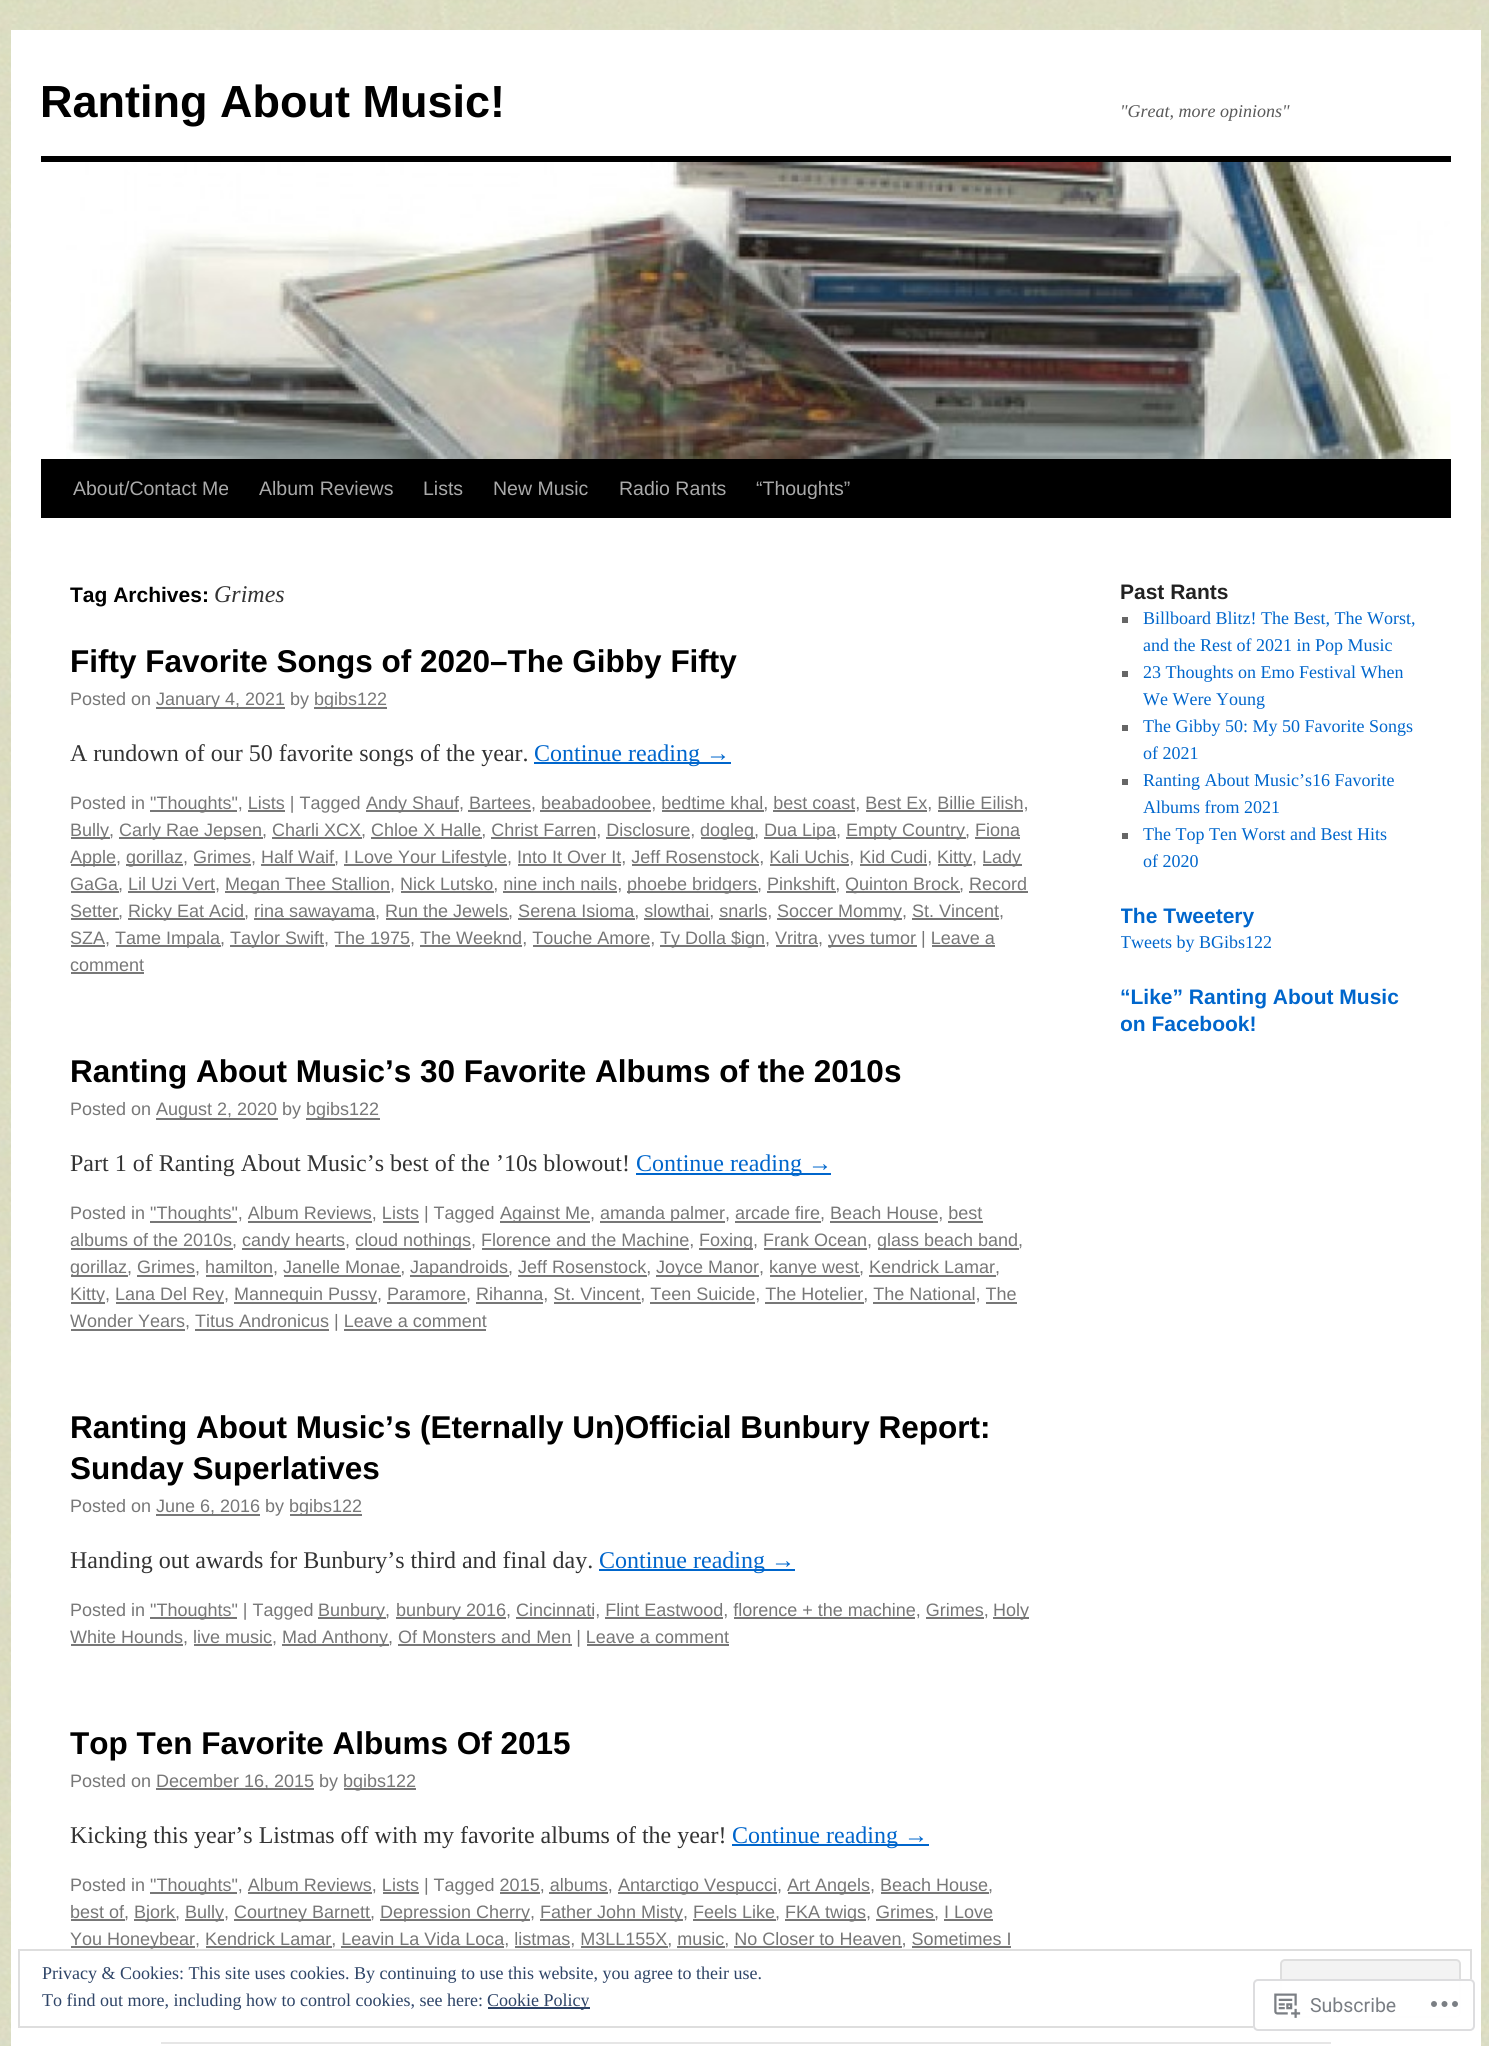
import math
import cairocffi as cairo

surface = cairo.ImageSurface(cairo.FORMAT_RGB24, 1489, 2046)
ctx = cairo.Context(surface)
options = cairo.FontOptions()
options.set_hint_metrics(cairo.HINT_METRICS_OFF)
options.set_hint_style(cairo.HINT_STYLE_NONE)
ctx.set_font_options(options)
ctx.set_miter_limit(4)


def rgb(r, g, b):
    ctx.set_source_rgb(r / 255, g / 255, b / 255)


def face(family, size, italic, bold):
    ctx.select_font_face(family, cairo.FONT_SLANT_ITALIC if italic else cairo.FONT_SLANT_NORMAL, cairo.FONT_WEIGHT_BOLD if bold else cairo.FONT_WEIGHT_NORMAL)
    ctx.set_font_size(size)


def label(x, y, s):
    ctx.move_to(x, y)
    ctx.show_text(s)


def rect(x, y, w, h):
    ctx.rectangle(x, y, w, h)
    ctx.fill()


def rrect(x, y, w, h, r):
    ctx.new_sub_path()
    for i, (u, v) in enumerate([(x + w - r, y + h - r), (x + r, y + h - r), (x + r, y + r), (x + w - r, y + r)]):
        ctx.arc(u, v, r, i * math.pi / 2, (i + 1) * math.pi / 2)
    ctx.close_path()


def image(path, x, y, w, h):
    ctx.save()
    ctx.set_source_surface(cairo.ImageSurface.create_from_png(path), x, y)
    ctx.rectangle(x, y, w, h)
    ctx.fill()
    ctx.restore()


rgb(255, 255, 255)
ctx.paint()
image('image0.png', 0, 0, 1489, 2046)
rgb(255, 255, 255)
rect(11, 30, 1470, 2016)
face('Liberation Sans', 45, 0, 1)
rgb(0, 0, 0)
label(40, 117, 'Ranting About Music!')
face('Liberation Serif', 18, 1, 0)
rgb(89, 89, 89)
label(1120, 117, '"Great, more opinions"')
rgb(0, 0, 0)
rect(41, 156, 1410, 6)
rect(41, 459, 1410, 59)
image('image1.png', 66, 162, 1385, 297)
face('Liberation Sans', 19.5, 0, 0)
rgb(170, 170, 170)
label(73, 495, 'About/Contact Me')
label(259, 495, 'Album Reviews')
label(423, 495, 'Lists')
label(493, 495, 'New Music')
label(619, 495, 'Radio Rants')
label(756, 495, '“Thoughts”')
face('Liberation Sans', 21, 0, 1)
rgb(0, 0, 0)
label(70, 602, 'Tag Archives:')
face('Liberation Serif', 24, 1, 0)
rgb(51, 51, 51)
label(214, 602, 'Grimes')
face('Liberation Sans', 31.5, 0, 1)
rgb(0, 0, 0)
label(70, 672, 'Fifty Favorite Songs of 2020–The Gibby Fifty')
face('Liberation Sans', 18, 0, 0)
rgb(119, 119, 119)
label(70, 705, 'Posted on')
rect(156, 707, 129, 2)
label(156, 705, 'January 4, 2021 by')
rect(314, 707, 73, 2)
label(314, 705, 'bgibs122')
face('Liberation Serif', 24, 0, 0)
rgb(51, 51, 51)
label(70, 761, 'A rundown of our 50 favorite songs of the year.')
rgb(0, 102, 204)
rect(534, 762, 197, 2)
label(534, 761, 'Continue reading →')
face('Liberation Sans', 18, 0, 0)
rgb(119, 119, 119)
label(70, 809, 'Posted in')
rect(150, 810, 87, 2)
label(150, 809, '"Thoughts", Lists | Tagged')
rect(248, 810, 37, 2)
rect(366, 810, 93, 2)
label(366, 809, 'Andy Shauf, Bartees, beabadoobee, bedtime khal, best coast, Best Ex, Billie Eilish,')
rect(468, 810, 63, 2)
rect(540, 810, 111, 2)
rect(662, 810, 102, 2)
rect(773, 810, 82, 2)
rect(866, 810, 61, 2)
rect(938, 810, 85, 2)
rect(71, 837, 39, 2)
label(70, 836, 'Bully,')
rect(119, 837, 144, 2)
label(119, 836, 'Carly Rae Jepsen, Charli XCX, Chloe X Halle, Christ Farren, Disclosure,')
rect(272, 837, 90, 2)
rect(371, 837, 111, 2)
rect(491, 837, 105, 2)
rect(606, 837, 84, 2)
rect(701, 837, 54, 2)
label(700, 836, 'dogleg,')
rect(764, 837, 72, 2)
label(764, 836, 'Dua Lipa,')
rect(846, 837, 120, 2)
label(846, 836, 'Empty Country, Fiona')
rect(975, 837, 45, 2)
rect(71, 864, 45, 2)
label(70, 863, 'Apple,')
rect(126, 864, 57, 2)
label(126, 863, 'gorillaz, Grimes, Half Waif,')
rect(194, 864, 57, 2)
rect(261, 864, 74, 2)
rect(344, 864, 163, 2)
label(344, 863, 'I Love Your Lifestyle, Into It Over It, Jeff Rosenstock, Kali Uchis, Kid Cudi,')
rect(518, 864, 103, 2)
rect(632, 864, 127, 2)
rect(770, 864, 79, 2)
rect(860, 864, 67, 2)
rect(938, 864, 34, 2)
label(937, 863, 'Kitty,')
rect(983, 864, 39, 2)
label(982, 863, 'Lady')
rect(71, 891, 48, 2)
label(70, 890, 'GaGa, Lil Uzi Vert,')
rect(128, 891, 87, 2)
rect(225, 891, 165, 2)
label(225, 890, 'Megan Thee Stallion, Nick Lutsko, nine inch nails,')
rect(401, 891, 93, 2)
rect(503, 891, 114, 2)
rect(627, 891, 131, 2)
label(627, 890, 'phoebe bridgers, Pinkshift,')
rect(767, 891, 69, 2)
rect(846, 891, 114, 2)
label(845, 890, 'Quinton Brock, Record')
rect(969, 891, 59, 2)
rect(71, 918, 48, 2)
label(70, 917, 'Setter,')
rect(128, 918, 117, 2)
label(128, 917, 'Ricky Eat Acid,')
rect(254, 918, 121, 2)
label(254, 917, 'rina sawayama, Run the Jewels, Serena Isioma, slowthai, snarls,')
rect(386, 918, 123, 2)
rect(518, 918, 117, 2)
rect(644, 918, 66, 2)
rect(719, 918, 48, 2)
rect(777, 918, 125, 2)
label(777, 917, 'Soccer Mommy, St. Vincent,')
rect(912, 918, 87, 2)
rect(71, 945, 34, 2)
label(70, 944, 'SZA,')
rect(116, 945, 105, 2)
label(115, 944, 'Tame Impala,')
rect(230, 945, 94, 2)
label(230, 944, 'Taylor Swift, The 1975, The Weeknd, Touche Amore,')
rect(335, 945, 75, 2)
rect(420, 945, 102, 2)
rect(533, 945, 117, 2)
rect(660, 945, 105, 2)
label(660, 944, 'Ty Dolla $ign, Vritra,')
rect(776, 945, 42, 2)
rect(828, 945, 89, 2)
label(828, 944, 'yves tumor | Leave a')
label(70, 971, 'comment')
rect(932, 945, 63, 2)
rect(71, 972, 73, 2)
face('Liberation Sans', 31.5, 0, 1)
rgb(0, 0, 0)
label(70, 1082, 'Ranting About Music’s 30 Favorite Albums of the 2010s')
face('Liberation Sans', 18, 0, 0)
rgb(119, 119, 119)
label(70, 1115, 'Posted on')
rect(156, 1118, 122, 2)
label(156, 1115, 'August 2, 2020 by')
rect(306, 1118, 74, 2)
label(306, 1115, 'bgibs122')
face('Liberation Serif', 24, 0, 0)
rgb(51, 51, 51)
label(70, 1171, 'Part 1 of Ranting About Music’s best of the ’10s blowout!')
rgb(0, 102, 204)
rect(636, 1173, 195, 2)
label(636, 1171, 'Continue reading →')
face('Liberation Sans', 18, 0, 0)
rgb(119, 119, 119)
label(70, 1219, 'Posted in')
rect(150, 1221, 87, 2)
label(150, 1219, '"Thoughts", Album Reviews, Lists | Tagged')
rect(248, 1221, 124, 2)
rect(383, 1221, 36, 2)
rect(500, 1221, 90, 2)
label(500, 1219, 'Against Me,')
rect(600, 1221, 125, 2)
label(600, 1219, 'amanda palmer, arcade fire, Beach House, best')
rect(735, 1221, 86, 2)
rect(830, 1221, 108, 2)
rect(948, 1221, 35, 2)
rect(71, 1248, 162, 2)
label(70, 1246, 'albums of the 2010s,')
rect(242, 1248, 103, 2)
label(242, 1246, 'candy hearts,')
rect(356, 1248, 115, 2)
label(355, 1246, 'cloud nothings, Florence and the Machine,')
rect(482, 1248, 207, 2)
rect(699, 1248, 54, 2)
label(699, 1246, 'Foxing, Frank Ocean,')
rect(764, 1248, 103, 2)
rect(878, 1248, 141, 2)
label(877, 1246, 'glass beach band,')
rect(71, 1275, 57, 2)
label(70, 1273, 'gorillaz, Grimes, hamilton, Janelle Monae,')
rect(137, 1275, 58, 2)
rect(206, 1275, 67, 2)
rect(284, 1275, 117, 2)
rect(410, 1275, 99, 2)
label(410, 1273, 'Japandroids, Jeff Rosenstock,')
rect(518, 1275, 129, 2)
rect(656, 1275, 103, 2)
label(656, 1273, 'Joyce Manor,')
rect(770, 1275, 90, 2)
label(769, 1273, 'kanye west, Kendrick Lamar,')
rect(869, 1275, 127, 2)
rect(71, 1302, 34, 2)
label(70, 1300, 'Kitty,')
rect(116, 1302, 108, 2)
label(115, 1300, 'Lana Del Rey,')
rect(234, 1302, 143, 2)
label(234, 1300, 'Mannequin Pussy, Paramore, Rihanna, St. Vincent, Teen Suicide, The Hotelier, The National, The')
rect(387, 1302, 80, 2)
rect(476, 1302, 67, 2)
rect(554, 1302, 87, 2)
rect(650, 1302, 105, 2)
rect(765, 1302, 99, 2)
rect(873, 1302, 102, 2)
rect(986, 1302, 31, 2)
rect(71, 1329, 114, 2)
label(70, 1327, 'Wonder Years, Titus Andronicus | Leave a comment')
rect(195, 1329, 134, 2)
rect(344, 1329, 142, 2)
face('Liberation Sans', 31.5, 0, 1)
rgb(0, 0, 0)
label(70, 1438, 'Ranting About Music’s (Eternally Un)Official Bunbury Report:')
label(70, 1479, 'Sunday Superlatives')
face('Liberation Sans', 18, 0, 0)
rgb(119, 119, 119)
label(70, 1512, 'Posted on')
rect(156, 1514, 104, 2)
label(156, 1512, 'June 6, 2016 by')
rect(290, 1514, 72, 2)
label(289, 1512, 'bgibs122')
face('Liberation Serif', 24, 0, 0)
rgb(51, 51, 51)
label(70, 1568, 'Handing out awards for Bunbury’s third and final day.')
rgb(0, 102, 204)
rect(599, 1569, 196, 2)
label(599, 1568, 'Continue reading →')
face('Liberation Sans', 18, 0, 0)
rgb(119, 119, 119)
label(70, 1616, 'Posted in')
rect(150, 1617, 87, 2)
label(150, 1616, '"Thoughts" | Tagged')
rect(318, 1617, 68, 2)
label(318, 1616, 'Bunbury,')
rect(396, 1617, 110, 2)
label(396, 1616, 'bunbury 2016, Cincinnati, Flint Eastwood, florence + the machine, Grimes,')
rect(516, 1617, 78, 2)
rect(605, 1617, 118, 2)
rect(734, 1617, 181, 2)
rect(926, 1617, 58, 2)
rect(993, 1617, 36, 2)
label(993, 1616, 'Holy')
rect(71, 1644, 112, 2)
label(70, 1643, 'White Hounds, live music,')
rect(194, 1644, 78, 2)
rect(282, 1644, 107, 2)
label(282, 1643, 'Mad Anthony, Of Monsters and Men | Leave a comment')
rect(398, 1644, 174, 2)
rect(587, 1644, 142, 2)
face('Liberation Sans', 31.5, 0, 1)
rgb(0, 0, 0)
label(70, 1754, 'Top Ten Favorite Albums Of 2015')
face('Liberation Sans', 18, 0, 0)
rgb(119, 119, 119)
label(70, 1787, 'Posted on')
rect(156, 1788, 158, 2)
label(156, 1787, 'December 16, 2015 by')
rect(344, 1788, 72, 2)
label(343, 1787, 'bgibs122')
face('Liberation Serif', 24, 0, 0)
rgb(51, 51, 51)
label(70, 1843, 'Kicking this year’s Listmas off with my favorite albums of the year!')
rgb(0, 102, 204)
rect(732, 1844, 197, 2)
label(732, 1843, 'Continue reading →')
face('Liberation Sans', 18, 0, 0)
rgb(119, 119, 119)
label(70, 1891, 'Posted in')
rect(150, 1892, 87, 2)
label(150, 1891, '"Thoughts", Album Reviews, Lists | Tagged 2015, albums,')
rect(248, 1892, 124, 2)
rect(383, 1892, 36, 2)
rect(618, 1892, 159, 2)
label(618, 1891, 'Antarctigo Vespucci,')
rect(549, 1892, 59, 2)
rect(788, 1892, 82, 2)
label(787, 1891, 'Art Angels, Beach House,')
rect(881, 1892, 108, 2)
rect(71, 1919, 54, 2)
label(70, 1918, 'best of,')
rect(134, 1919, 42, 2)
label(134, 1918, 'Bjork,')
rect(185, 1919, 39, 2)
label(185, 1918, 'Bully,')
rect(234, 1919, 137, 2)
label(234, 1918, 'Courtney Barnett,')
rect(380, 1919, 150, 2)
label(380, 1918, 'Depression Cherry,')
rect(500, 1892, 40, 2)
rect(540, 1919, 143, 2)
label(540, 1918, 'Father John Misty, Feels Like,')
rect(693, 1919, 83, 2)
rect(785, 1919, 81, 2)
label(785, 1918, 'FKA twigs, Grimes, I Love')
rect(876, 1919, 59, 2)
rect(944, 1919, 49, 2)
rect(71, 1946, 124, 2)
label(70, 1945, 'You Honeybear, Kendrick Lamar, Leavin La Vida Loca, listmas, M3LL155X, music, No Closer to Heaven, Sometimes I')
rect(206, 1946, 126, 2)
rect(341, 1946, 163, 2)
rect(515, 1946, 55, 2)
rect(581, 1946, 87, 2)
rect(677, 1946, 48, 2)
rect(734, 1946, 168, 2)
rect(912, 1946, 99, 2)
face('Liberation Sans', 21, 0, 1)
rgb(34, 34, 34)
label(1120, 599, 'Past Rants')
rgb(102, 102, 102)
rect(1122, 617, 6, 6)
face('Liberation Serif', 18, 0, 0)
rgb(0, 102, 204)
label(1143, 624, 'Billboard Blitz! The Best, The Worst,')
label(1143, 651, 'and the Rest of 2021 in Pop Music')
rgb(102, 102, 102)
rect(1122, 671, 6, 6)
rgb(0, 102, 204)
label(1143, 678, '23 Thoughts on Emo Festival When')
label(1143, 705, 'We Were Young')
rgb(102, 102, 102)
rect(1122, 725, 6, 6)
rgb(0, 102, 204)
label(1143, 732, 'The Gibby 50: My 50 Favorite Songs')
label(1143, 759, 'of 2021')
rgb(102, 102, 102)
rect(1122, 779, 6, 6)
rgb(0, 102, 204)
label(1143, 786, 'Ranting About Music’s16 Favorite')
label(1143, 813, 'Albums from 2021')
rgb(102, 102, 102)
rect(1122, 833, 6, 6)
rgb(0, 102, 204)
label(1143, 840, 'The Top Ten Worst and Best Hits')
label(1143, 867, 'of 2020')
ctx.save()
ctx.rectangle(1121, 902, 330, 189)
ctx.clip()
face('Liberation Sans', 21, 0, 1)
label(1120, 923, 'The Tweetery')
face('Liberation Serif', 18, 0, 0)
label(1120, 948, 'Tweets by BGibs122')
ctx.restore()
face('Liberation Sans', 21, 0, 1)
label(1120, 1004, '“Like” Ranting About Music')
ctx.save()
ctx.rectangle(1121, 983, 300, 81)
ctx.clip()
label(1120, 1031, 'on Facebook!')
ctx.restore()
ctx.rectangle(19, 1950, 1452, 77)
rgb(222, 222, 222)
ctx.stroke()
face('Liberation Serif', 18, 0, 0)
rgb(46, 68, 103)
label(42, 1979, 'Privacy & Cookies: This site uses cookies. By continuing to use this website, you agree to their use.')
rgb(243, 243, 243)
rrect(1281, 1960, 179, 57, 4)
ctx.fill_preserve()
rgb(222, 222, 222)
ctx.stroke()
rgb(46, 68, 103)
label(42, 2006, 'To find out more, including how to control cookies, see here:')
rect(488, 2007, 102, 2)
label(487, 2006, 'Cookie Policy')
ctx.set_source_rgba(1, 1, 1, 0.98)
rrect(1253, 1979, 222, 52, 5)
ctx.fill()
rrect(1254, 1980, 220, 50, 4)
ctx.set_source_rgba(0.863, 0.863, 0.871, 0.98)
ctx.stroke()
image('image2.png', 1274, 1993, 27, 25)
face('Roboto', 19.5, 0, 0)
rgb(122, 126, 132)
label(1310, 2012, 'Subscribe')
image('image3.png', 1431, 2001, 27, 6)
rgb(230, 230, 230)
rect(161, 2042, 1170, 2)
surface.write_to_png('render.png')
